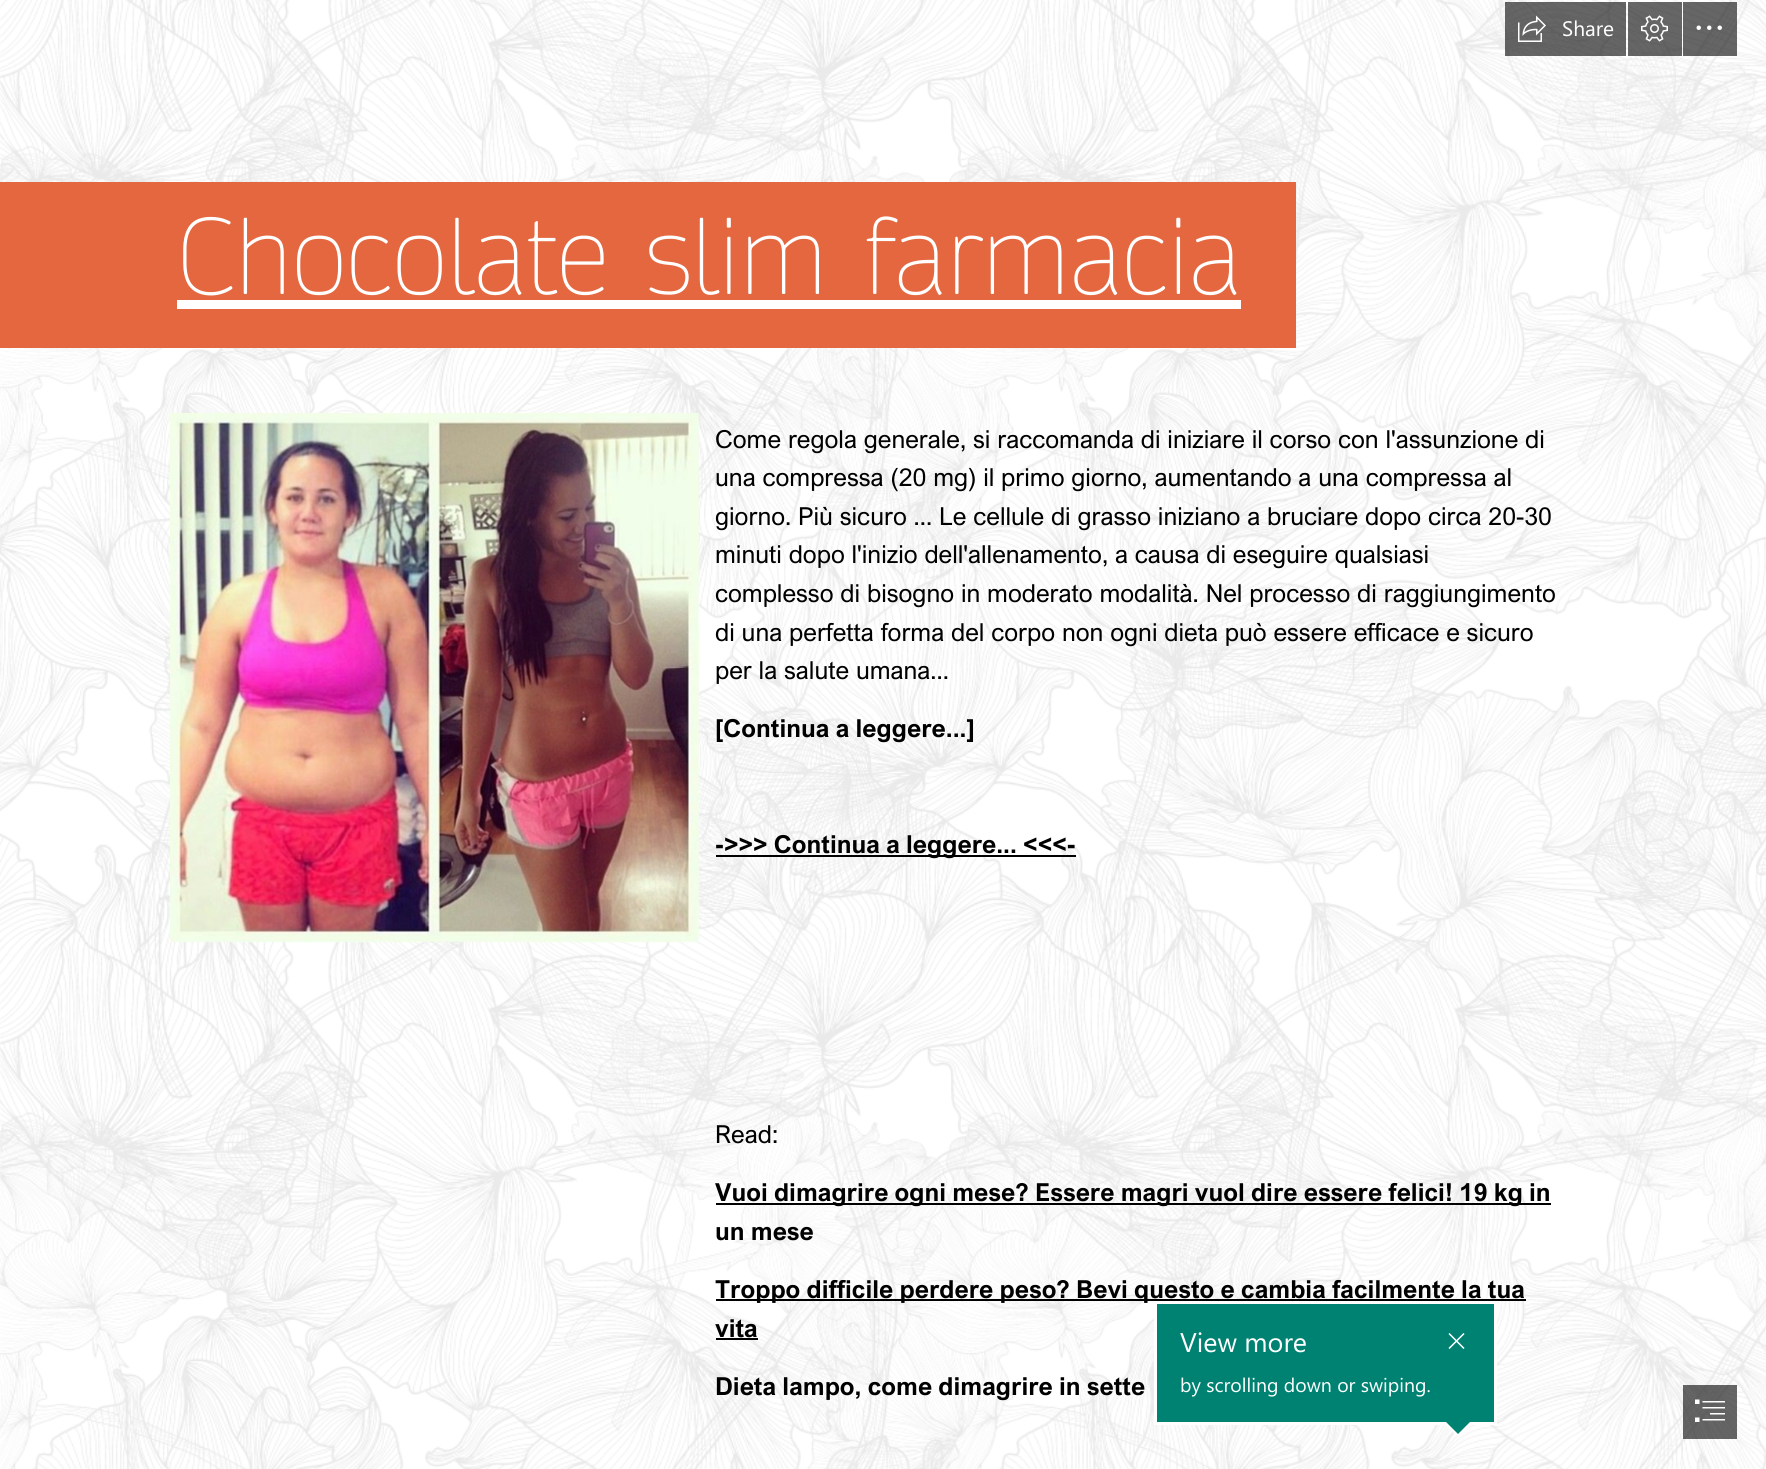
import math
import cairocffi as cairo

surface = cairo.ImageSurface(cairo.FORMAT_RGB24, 1766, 1469)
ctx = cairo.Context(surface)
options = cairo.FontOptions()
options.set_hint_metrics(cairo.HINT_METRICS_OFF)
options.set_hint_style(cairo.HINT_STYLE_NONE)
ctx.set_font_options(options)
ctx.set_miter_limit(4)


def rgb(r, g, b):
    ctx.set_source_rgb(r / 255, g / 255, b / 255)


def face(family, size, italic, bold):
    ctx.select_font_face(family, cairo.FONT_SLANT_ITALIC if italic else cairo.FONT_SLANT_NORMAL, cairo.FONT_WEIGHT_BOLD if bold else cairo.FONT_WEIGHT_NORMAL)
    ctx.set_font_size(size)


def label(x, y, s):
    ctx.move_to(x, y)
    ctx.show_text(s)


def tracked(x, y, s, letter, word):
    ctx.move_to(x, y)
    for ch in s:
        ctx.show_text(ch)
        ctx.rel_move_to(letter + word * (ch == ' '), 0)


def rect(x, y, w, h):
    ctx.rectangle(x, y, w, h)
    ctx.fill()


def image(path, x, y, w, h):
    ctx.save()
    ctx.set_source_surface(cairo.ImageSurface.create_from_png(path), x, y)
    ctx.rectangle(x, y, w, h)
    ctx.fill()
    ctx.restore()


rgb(234, 234, 234)
ctx.paint()
image('image3.png', 0, 0, 1766, 1469)
ctx.set_source_rgba(0, 0, 0, 0.6)
rect(1505, 2, 121, 54)
image('image0.png', 1518, 15, 28, 27)
face('Segoe UI', 21, 0, 0)
rgb(255, 255, 255)
label(1562, 36, 'Share')
ctx.set_source_rgba(0, 0, 0, 0.6)
rect(1628, 2, 54, 54)
image('image1.png', 1641, 15, 27, 27)
rect(1683, 2, 54, 54)
image('image2.png', 1696, 25, 26, 5)
rgb(229, 103, 64)
rect(0, 182, 1296, 166)
face('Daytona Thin', 103.5, 0, 0)
rgb(255, 255, 255)
tracked(177, 294, 'Chocolate slim farmacia', -1.75, 0)
rect(177, 300, 1064, 9)
image('image4.png', 170, 413, 530, 530)
face('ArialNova', 24.85, 0, 0)
rgb(0, 0, 0)
label(715, 448, 'Come regola generale, si raccomanda di iniziare il corso con l\'assunzione di')
label(715, 486, 'una compressa (20 mg) il primo giorno, aumentando a una compressa al')
label(715, 525, 'giorno. Più sicuro ... Le cellule di grasso iniziano a bruciare dopo circa 20-30')
label(715, 563, 'minuti dopo l\'inizio dell\'allenamento, a causa di eseguire qualsiasi')
label(715, 602, 'complesso di bisogno in moderato modalità. Nel processo di raggiungimento')
label(715, 641, 'di una perfetta forma del corpo non ogni dieta può essere efficace e sicuro')
label(715, 679, 'per la salute umana...')
face('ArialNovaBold', 24.85, 0, 1)
label(715, 737, '[Continua a leggere...]')
rect(716, 855, 360, 2)
label(715, 853, '->>> Continua a leggere... <<<-')
face('ArialNova', 24.85, 0, 0)
label(715, 1143, 'Read:')
rect(716, 1203, 835, 2)
face('ArialNovaBold', 24.85, 0, 1)
label(715, 1201, 'Vuoi dimagrire ogni mese? Essere magri vuol dire essere felici! 19 kg in')
label(715, 1240, 'un mese')
rect(716, 1299, 810, 2)
label(715, 1298, 'Troppo difficile perdere peso? Bevi questo e cambia facilmente la tua')
label(715, 1337, 'vita')
rect(716, 1338, 42, 2)
label(715, 1395, 'Dieta lampo, come dimagrire in sette')
rgb(0, 130, 114)
ctx.rectangle(1155.5, 1302.5, 340, 121)
ctx.fill_preserve()
rgb(255, 255, 255)
ctx.set_line_width(3)
ctx.stroke()
face('Segoe UI', 27, 0, 0)
label(1180, 1352, 'View more')
face('Segoe UI', 19.5, 0, 0)
label(1180, 1392, 'by scrolling down or swiping.')
image('image5.png', 1448, 1333, 17, 16)
ctx.new_path()
ctx.move_to(1443, 1422)
ctx.line_to(1473, 1422)
ctx.line_to(1458, 1437)
ctx.close_path()
ctx.fill()
rgb(0, 130, 114)
ctx.new_path()
ctx.move_to(1446, 1422)
ctx.line_to(1470, 1422)
ctx.line_to(1458, 1434)
ctx.close_path()
ctx.fill()
ctx.set_source_rgba(0, 0, 0, 0.6)
rect(1683, 1385, 54, 54)
image('image6.png', 1695, 1399, 30, 23)
surface.write_to_png('render.png')
